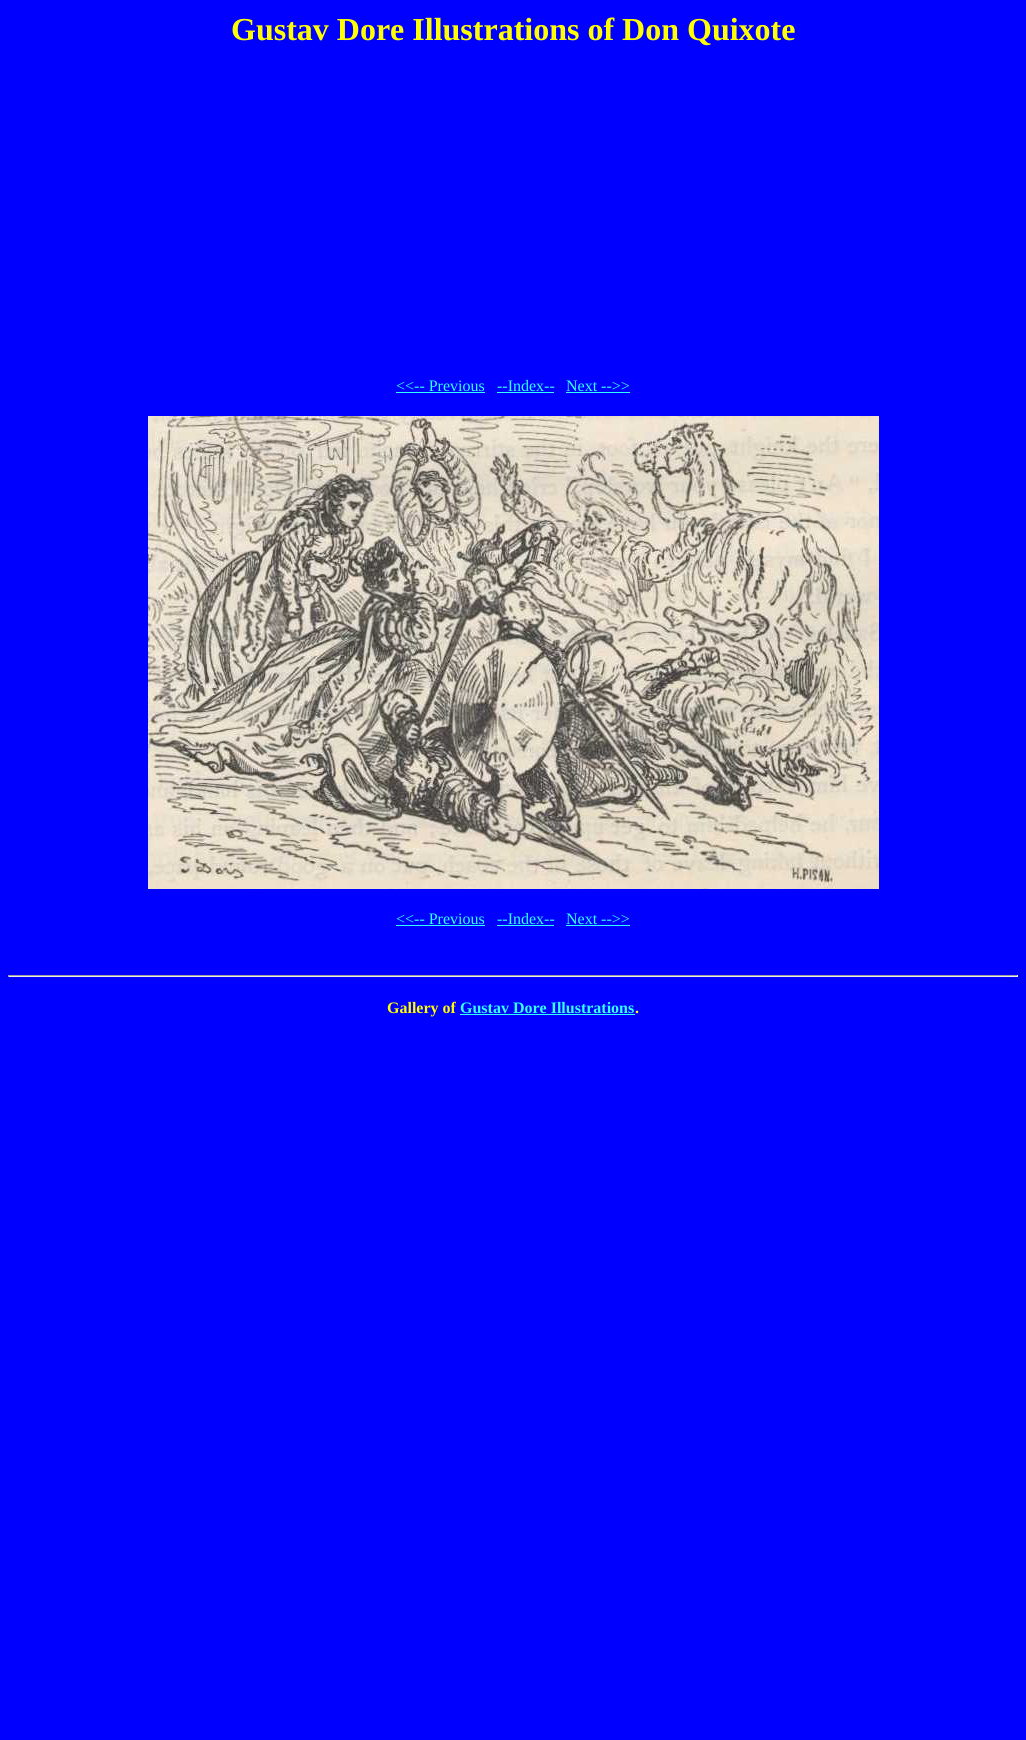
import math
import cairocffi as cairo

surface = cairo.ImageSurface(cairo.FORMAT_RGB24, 1026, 1740)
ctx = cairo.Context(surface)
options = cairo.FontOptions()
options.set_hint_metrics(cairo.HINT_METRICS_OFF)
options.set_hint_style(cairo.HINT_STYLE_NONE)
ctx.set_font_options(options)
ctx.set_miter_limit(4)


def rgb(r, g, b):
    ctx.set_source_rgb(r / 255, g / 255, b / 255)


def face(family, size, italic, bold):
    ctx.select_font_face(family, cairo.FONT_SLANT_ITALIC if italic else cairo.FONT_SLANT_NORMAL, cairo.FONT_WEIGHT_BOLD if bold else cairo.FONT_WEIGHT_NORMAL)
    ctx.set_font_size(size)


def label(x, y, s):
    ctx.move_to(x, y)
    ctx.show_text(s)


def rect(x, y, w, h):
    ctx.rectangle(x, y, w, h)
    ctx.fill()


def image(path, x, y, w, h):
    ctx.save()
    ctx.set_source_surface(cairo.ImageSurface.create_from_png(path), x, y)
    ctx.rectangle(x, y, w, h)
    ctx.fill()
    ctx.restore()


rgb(0, 0, 255)
ctx.paint()
face('Liberation Serif', 32, 0, 1)
rgb(255, 255, 0)
label(231, 40, 'Gustav Dore Illustrations of Don Quixote')
face('Liberation Serif', 16, 0, 0)
rgb(51, 255, 255)
label(396, 391, '<<-- Previous')
rect(396, 392, 89, 1)
label(497, 391, '--Index--')
rect(497, 392, 57, 1)
label(566, 391, 'Next -->>')
rect(566, 392, 64, 1)
image('image0.png', 148, 416, 731, 473)
label(396, 924, '<<-- Previous')
rect(396, 925, 89, 1)
label(497, 924, '--Index--')
rect(497, 925, 57, 1)
label(566, 924, 'Next -->>')
rect(566, 925, 64, 1)
rgb(159, 159, 159)
rect(8, 975, 1010, 1)
rgb(238, 238, 238)
rect(1017, 975, 1, 2)
rect(8, 976, 1010, 1)
rgb(159, 159, 159)
rect(8, 975, 1, 2)
face('Liberation Serif', 16, 0, 1)
rgb(255, 255, 0)
label(387, 1013, 'Gallery of')
rgb(51, 255, 255)
label(460, 1013, 'Gustav Dore Illustrations')
rect(460, 1014, 175, 1)
rgb(255, 255, 0)
label(635, 1013, '.')
surface.write_to_png('render.png')
